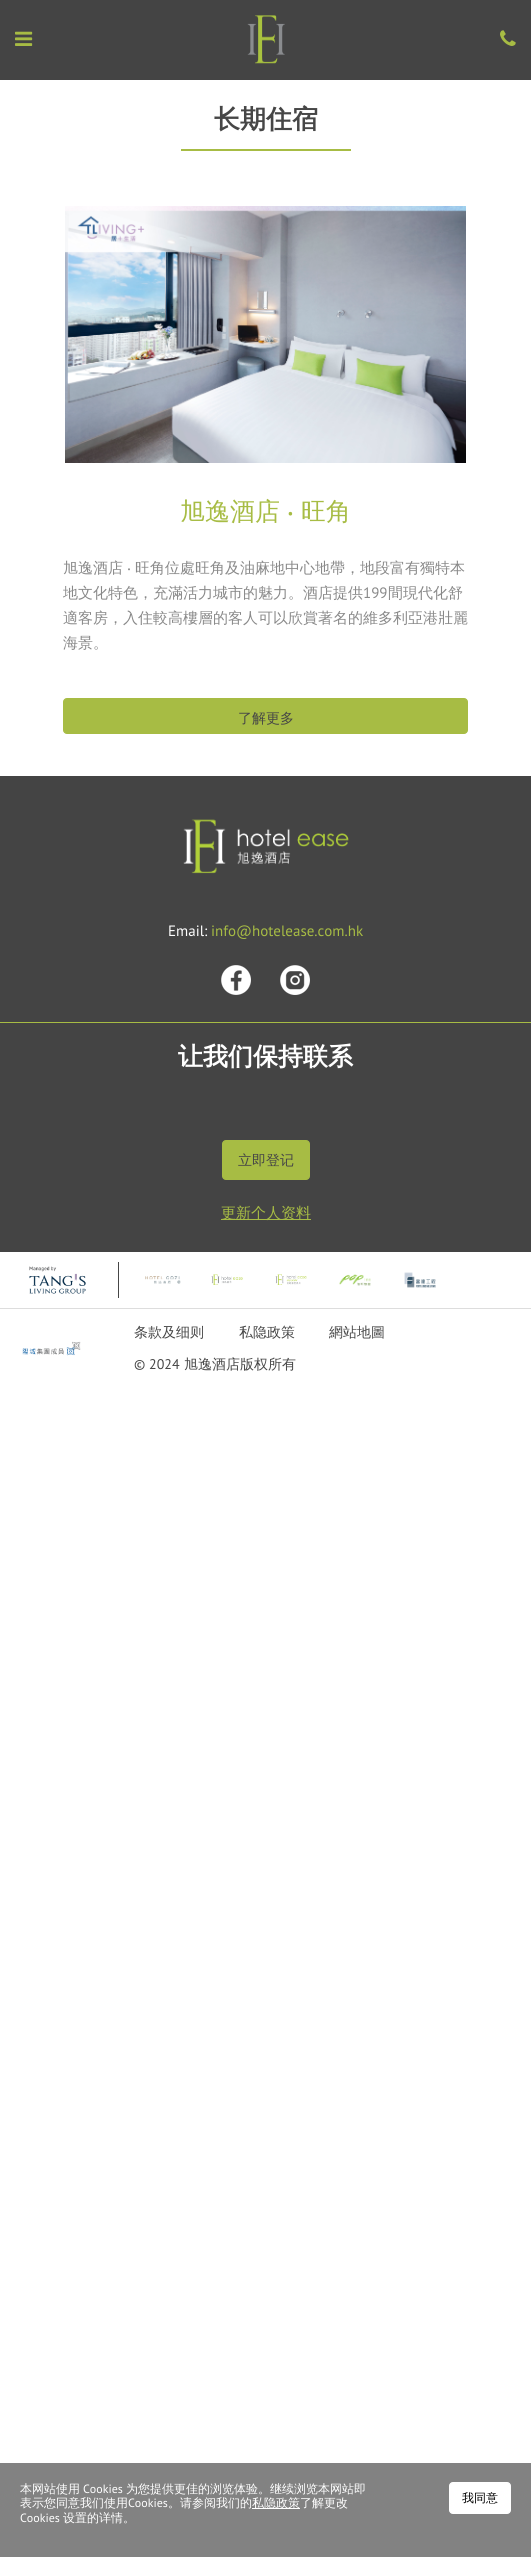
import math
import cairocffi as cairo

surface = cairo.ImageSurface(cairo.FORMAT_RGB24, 531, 2557)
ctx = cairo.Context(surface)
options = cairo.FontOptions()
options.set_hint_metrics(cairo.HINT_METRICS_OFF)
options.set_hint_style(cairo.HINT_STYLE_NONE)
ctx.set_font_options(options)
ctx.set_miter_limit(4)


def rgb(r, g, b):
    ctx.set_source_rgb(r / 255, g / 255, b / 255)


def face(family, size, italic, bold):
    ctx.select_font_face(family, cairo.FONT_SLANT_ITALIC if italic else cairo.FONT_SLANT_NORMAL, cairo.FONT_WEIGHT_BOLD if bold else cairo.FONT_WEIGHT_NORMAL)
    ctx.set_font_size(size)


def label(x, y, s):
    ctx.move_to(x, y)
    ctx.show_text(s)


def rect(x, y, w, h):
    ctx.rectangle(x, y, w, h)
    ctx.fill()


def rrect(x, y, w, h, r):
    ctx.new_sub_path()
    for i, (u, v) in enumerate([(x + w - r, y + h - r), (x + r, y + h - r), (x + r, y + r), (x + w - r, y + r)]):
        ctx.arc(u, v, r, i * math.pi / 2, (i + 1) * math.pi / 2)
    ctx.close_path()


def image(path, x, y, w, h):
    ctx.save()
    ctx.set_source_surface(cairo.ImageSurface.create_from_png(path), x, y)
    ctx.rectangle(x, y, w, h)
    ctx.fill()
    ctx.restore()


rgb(255, 255, 255)
ctx.paint()
rgb(68, 68, 68)
rect(0, 0, 531, 80)
image('image0.png', 15, 31, 18, 15)
image('image1.png', 247, 15, 38, 49)
image('image2.png', 500, 30, 16, 16)
face('WenQuanYi Zen Hei', 26, 0, 1)
rgb(70, 70, 70)
label(214, 128, '长期住宿')
rgb(167, 188, 68)
rect(181, 149, 170, 2)
image('image3.png', 65, 206, 401, 257)
face('WenQuanYi Zen Hei Medium', 25, 0, 0)
label(180, 520, '旭逸酒店')
face('Noto Sans Medium', 25, 0, 0)
label(287, 520, '‧')
face('WenQuanYi Zen Hei Medium', 25, 0, 0)
label(301, 520, '旺角')
face('WenQuanYi Zen Hei Medium', 15, 0, 0)
rgb(137, 137, 137)
label(63, 573, '旭逸酒店')
face('Noto Sans', 15, 0, 0)
label(127, 573, '‧')
face('WenQuanYi Zen Hei Medium', 15, 0, 0)
label(135, 573, '旺角位處旺角及油麻地中心地帶，地段富有獨特本')
label(63, 598, '地文化特色，充滿活力城市的魅力。酒店提供')
face('PT Sans', 15, 0, 0)
label(363, 598, '199')
face('WenQuanYi Zen Hei Medium', 15, 0, 0)
label(388, 598, '間現代化舒')
label(63, 623, '適客房，入住較高樓層的客人可以欣賞著名的維多利亞港壯麗')
label(63, 648, '海景。')
rgb(167, 188, 68)
rrect(63.5, 698.5, 404, 35, 3.5)
ctx.fill_preserve()
ctx.set_line_width(1)
ctx.stroke()
face('WenQuanYi Zen Hei Medium', 14, 0, 0)
rgb(70, 70, 70)
label(238, 723, '了解更多')
rgb(68, 68, 68)
rect(0, 776, 531, 476)
image('image4.png', 183, 819, 166, 55)
face('PT Sans', 15, 0, 0)
rgb(255, 255, 255)
label(168, 936, 'Email:')
rgb(167, 188, 68)
label(211, 936, 'info@hotelease.com.hk')
rect(0, 1022, 531, 1)
image('image5.png', 221, 965, 30, 30)
image('image6.png', 280, 965, 30, 30)
face('WenQuanYi Zen Hei', 25, 0, 1)
rgb(255, 255, 255)
label(178, 1065, '让我们保持联系')
rgb(167, 188, 68)
rrect(222.5, 1140.5, 87, 39, 3.5)
ctx.fill_preserve()
ctx.stroke()
face('WenQuanYi Zen Hei Medium', 14, 0, 0)
rgb(70, 70, 70)
label(238, 1165, '立即登记')
rgb(167, 188, 68)
rect(221, 1219, 90, 1)
face('WenQuanYi Zen Hei Medium', 15, 0, 0)
label(221, 1218, '更新个人资料')
image('image7.png', 29, 1266, 57, 28)
rgb(70, 70, 70)
rect(118, 1262, 1, 36)
image('image8.png', 145, 1276, 36, 8)
image('image9.png', 211, 1274, 32, 11)
image('image10.png', 275, 1274, 32, 11)
image('image11.png', 339, 1274, 32, 12)
image('image12.png', 404, 1272, 32, 16)
rgb(221, 221, 221)
rect(0, 1308, 531, 1)
image('image13.png', 22, 1341, 59, 15)
face('WenQuanYi Zen Hei Medium', 14, 0, 0)
rgb(70, 70, 70)
label(134, 1337, '条款及细则')
label(239, 1337, '私隐政策')
label(329, 1337, '網站地圖')
face('PT Sans', 14, 0, 0)
label(134, 1369, '© 2024')
face('WenQuanYi Zen Hei Medium', 14, 0, 0)
label(184, 1369, '旭逸酒店版权所有')
rgb(130, 130, 130)
rect(0, 2463, 531, 94)
face('WenQuanYi Zen Hei Medium', 12, 0, 0)
rgb(255, 255, 255)
label(20, 2493, '本网站使用')
face('PT Sans', 12, 0, 0)
label(83, 2493, 'Cookies')
face('WenQuanYi Zen Hei Medium', 12, 0, 0)
label(126, 2493, '为您提供更佳的浏览体验。继续浏览本网站即')
label(20, 2507, '表示您同意我们使用')
face('PT Sans', 12, 0, 0)
label(128, 2507, 'Cookies')
face('WenQuanYi Zen Hei Medium', 12, 0, 0)
label(168, 2507, '。请参阅我们的')
rect(252, 2508, 48, 1)
label(252, 2507, '私隐政策了解更改')
face('PT Sans', 12, 0, 0)
label(20, 2522, 'Cookies')
face('WenQuanYi Zen Hei Medium', 12, 0, 0)
label(63, 2522, '设置的详情。')
rrect(449.5, 2482.5, 61, 31, 3.5)
ctx.fill_preserve()
ctx.stroke()
rgb(0, 0, 0)
label(462, 2502, '我同意')
surface.write_to_png('render.png')
